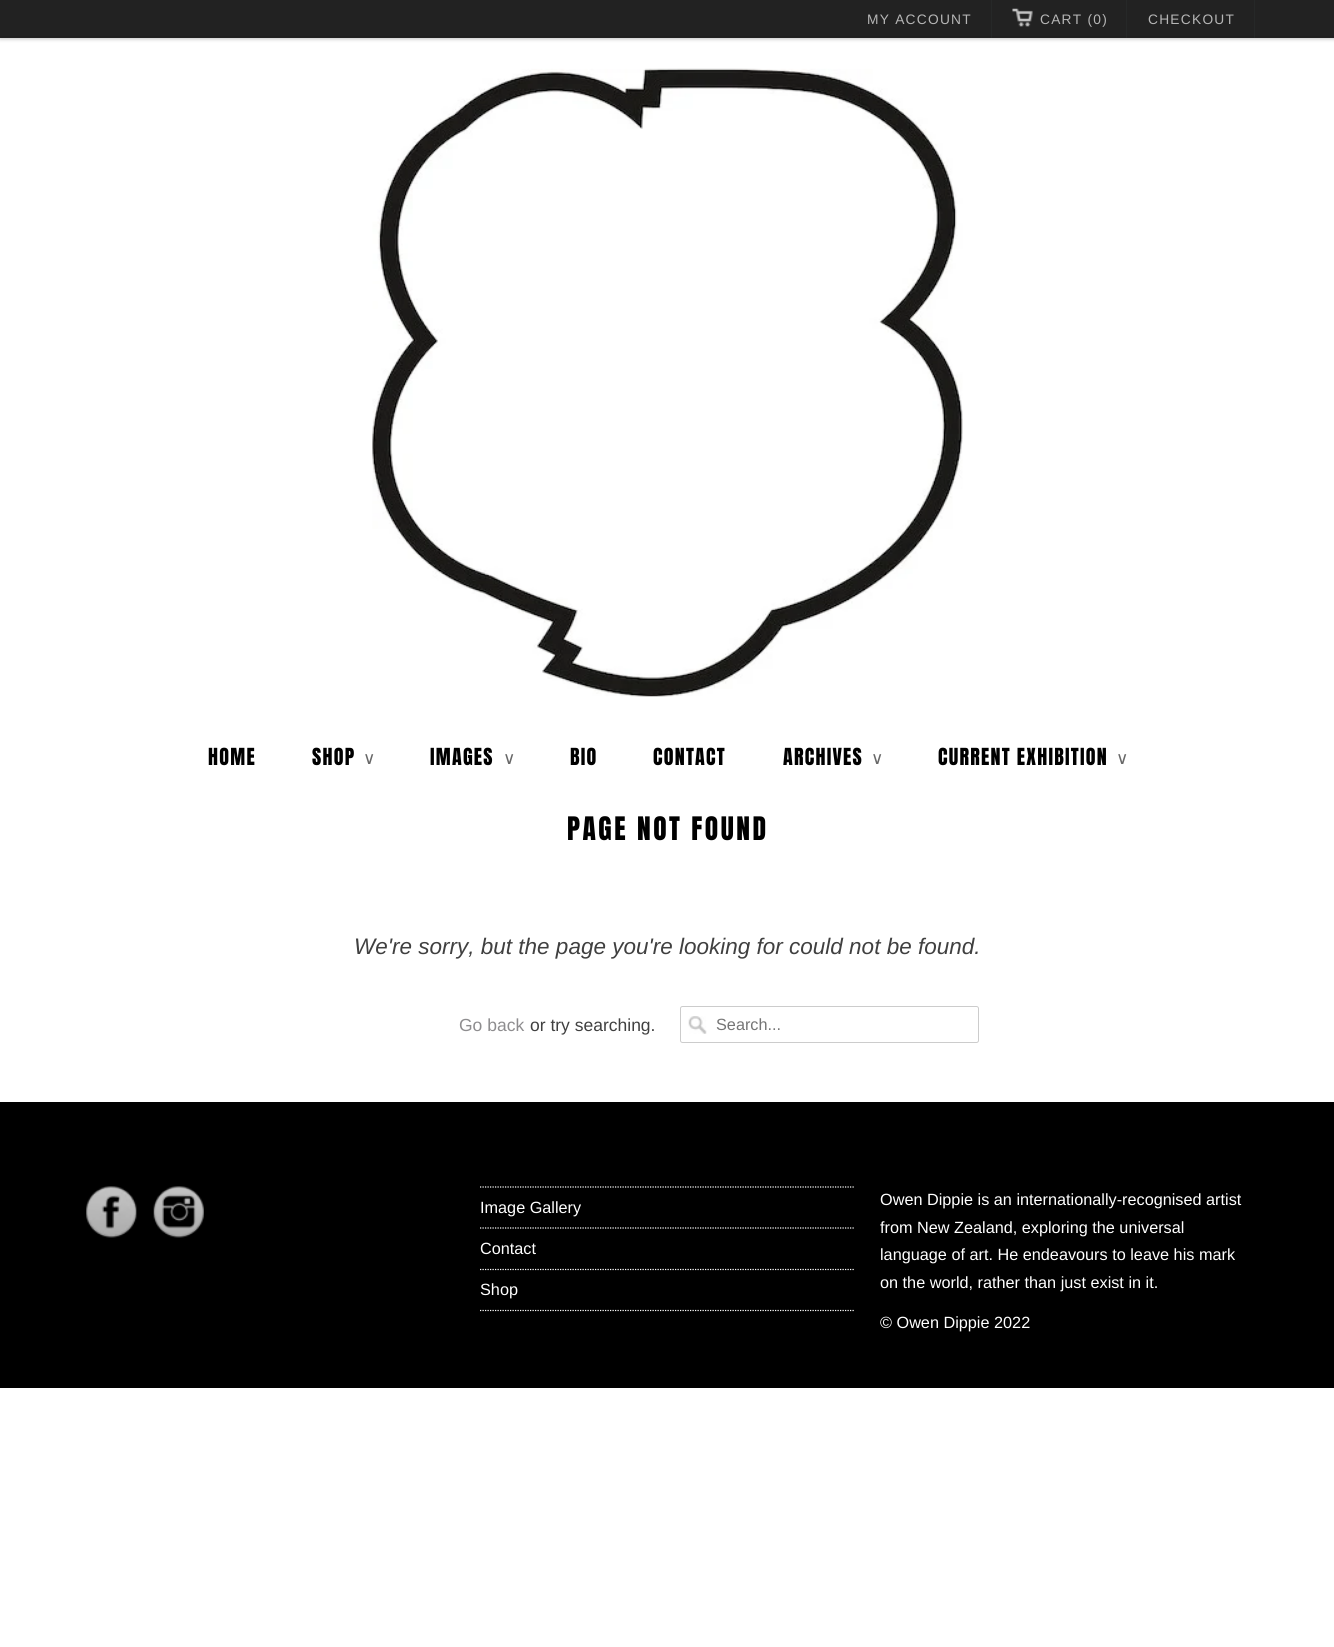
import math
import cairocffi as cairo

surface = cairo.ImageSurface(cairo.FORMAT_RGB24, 1334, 1647)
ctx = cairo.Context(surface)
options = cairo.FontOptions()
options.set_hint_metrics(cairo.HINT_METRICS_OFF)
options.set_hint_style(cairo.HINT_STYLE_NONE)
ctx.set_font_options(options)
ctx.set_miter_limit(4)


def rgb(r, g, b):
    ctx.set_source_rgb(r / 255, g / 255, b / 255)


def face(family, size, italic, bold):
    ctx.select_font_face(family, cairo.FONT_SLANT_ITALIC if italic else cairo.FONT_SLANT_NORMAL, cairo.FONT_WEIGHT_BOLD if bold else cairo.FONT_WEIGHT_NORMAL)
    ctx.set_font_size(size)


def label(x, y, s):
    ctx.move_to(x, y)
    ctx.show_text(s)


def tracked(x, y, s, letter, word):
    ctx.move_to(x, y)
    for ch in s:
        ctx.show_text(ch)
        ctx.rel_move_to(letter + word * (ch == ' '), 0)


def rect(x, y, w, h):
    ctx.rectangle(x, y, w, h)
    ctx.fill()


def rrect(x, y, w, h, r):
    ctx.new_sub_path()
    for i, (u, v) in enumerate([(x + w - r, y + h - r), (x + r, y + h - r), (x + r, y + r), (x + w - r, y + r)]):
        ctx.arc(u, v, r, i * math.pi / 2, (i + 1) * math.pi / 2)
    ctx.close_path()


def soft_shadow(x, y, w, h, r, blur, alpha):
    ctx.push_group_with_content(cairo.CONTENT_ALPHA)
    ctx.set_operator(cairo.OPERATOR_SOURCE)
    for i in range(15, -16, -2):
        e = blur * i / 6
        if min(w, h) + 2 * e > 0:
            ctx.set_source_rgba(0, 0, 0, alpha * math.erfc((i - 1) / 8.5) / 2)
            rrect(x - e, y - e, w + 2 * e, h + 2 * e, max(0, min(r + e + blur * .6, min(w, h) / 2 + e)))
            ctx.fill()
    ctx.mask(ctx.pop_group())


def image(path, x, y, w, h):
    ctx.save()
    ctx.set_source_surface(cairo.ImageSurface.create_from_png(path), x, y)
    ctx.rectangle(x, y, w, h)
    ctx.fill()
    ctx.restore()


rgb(255, 255, 255)
ctx.paint()
rgb(0, 0, 0)
soft_shadow(0, 1, 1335, 38, 0, 2, 0.25)
rgb(34, 34, 34)
rect(0, 0, 1334, 38)
rgb(31, 31, 31)
rect(0, 36, 1334, 1)
ctx.set_source_rgba(0.227, 0.263, 0.267, 0.2)
rect(991, 0, 1, 38)
face('Liberation Sans', 13.75, 0, 0)
rgb(182, 182, 182)
tracked(867, 24, 'MY ACCOUNT', 1.25, 0)
ctx.set_source_rgba(0.227, 0.263, 0.267, 0.2)
rect(1126, 0, 1, 38)
image('image0.png', 1012, 8, 21, 19)
rgb(182, 182, 182)
tracked(1040, 24, 'CART (0)', 1.25, 0)
ctx.set_source_rgba(0.227, 0.263, 0.267, 0.2)
rect(1254, 0, 1, 38)
rgb(182, 182, 182)
tracked(1148, 24, 'CHECKOUT', 1.25, 0)
image('image1.png', 372, 68, 591, 629)
face('Anton', 20, 0, 0)
rgb(0, 0, 0)
tracked(208, 765, 'HOME', 1.25, 0)
tracked(312, 765, 'SHOP', 1.25, 0)
face('DejaVu Sans', 17, 0, 0)
rgb(104, 104, 104)
tracked(363, 764, '∨', 1.25, 0)
face('Anton', 20, 0, 0)
rgb(0, 0, 0)
tracked(430, 765, 'IMAGES', 1.25, 0)
face('DejaVu Sans', 17, 0, 0)
rgb(104, 104, 104)
tracked(503, 764, '∨', 1.25, 0)
face('Anton', 20, 0, 0)
rgb(0, 0, 0)
tracked(570, 765, 'BIO', 1.25, 0)
tracked(653, 765, 'CONTACT', 1.25, 0)
tracked(783, 765, 'ARCHIVES', 1.25, 0)
face('DejaVu Sans', 17, 0, 0)
rgb(104, 104, 104)
tracked(871, 764, '∨', 1.25, 0)
face('Anton', 20, 0, 0)
rgb(0, 0, 0)
tracked(938, 765, 'CURRENT EXHIBITION', 1.25, 0)
face('DejaVu Sans', 17, 0, 0)
rgb(104, 104, 104)
tracked(1116, 764, '∨', 1.25, 0)
face('Anton', 27.5, 0, 0)
rgb(0, 0, 0)
tracked(567, 840, 'PAGE NOT FOUND', 2.5, 0)
face('Liberation Sans', 22.5, 1, 0)
rgb(64, 64, 64)
label(354, 954, 'We\'re sorry, but the page you\'re looking for could not be found.')
face('Liberation Sans', 17.5, 0, 0)
rgb(142, 141, 143)
label(459, 1031, 'Go back')
rgb(64, 64, 64)
label(530, 1031, 'or try searching.')
image('image2.png', 688, 1016, 19, 18)
rrect(680.5, 1006.5, 298, 36, 2)
rgb(204, 204, 204)
ctx.set_line_width(1)
ctx.stroke()
face('Liberation Sans', 16.25, 0, 0)
rgb(117, 117, 117)
label(716, 1030, 'Search...')
rgb(0, 0, 0)
rect(0, 1102, 1334, 286)
image('image3.png', 86, 1186, 51, 52)
image('image4.png', 153, 1186, 51, 52)
ctx.new_path()
ctx.move_to(480, 1187)
ctx.line_to(855, 1187)
rgb(255, 255, 255)
ctx.set_line_width(1.2)
ctx.set_dash([1.25, 1.25])
ctx.stroke()
ctx.new_path()
ctx.move_to(480, 1228)
ctx.line_to(855, 1228)
ctx.stroke()
label(480, 1213, 'Image Gallery')
ctx.new_path()
ctx.move_to(480, 1269.5)
ctx.line_to(855, 1269.5)
ctx.stroke()
label(480, 1254, 'Contact')
ctx.new_path()
ctx.move_to(480, 1310.5)
ctx.line_to(855, 1310.5)
ctx.stroke()
label(480, 1295, 'Shop')
label(880, 1205, 'Owen Dippie is an internationally-recognised artist')
label(880, 1233, 'from New Zealand, exploring the universal')
label(880, 1260, 'language of art. He endeavours to leave his mark')
label(880, 1288, 'on the world, rather than just exist in it.')
label(880, 1328, '© Owen Dippie 2022')
surface.write_to_png('render.png')
